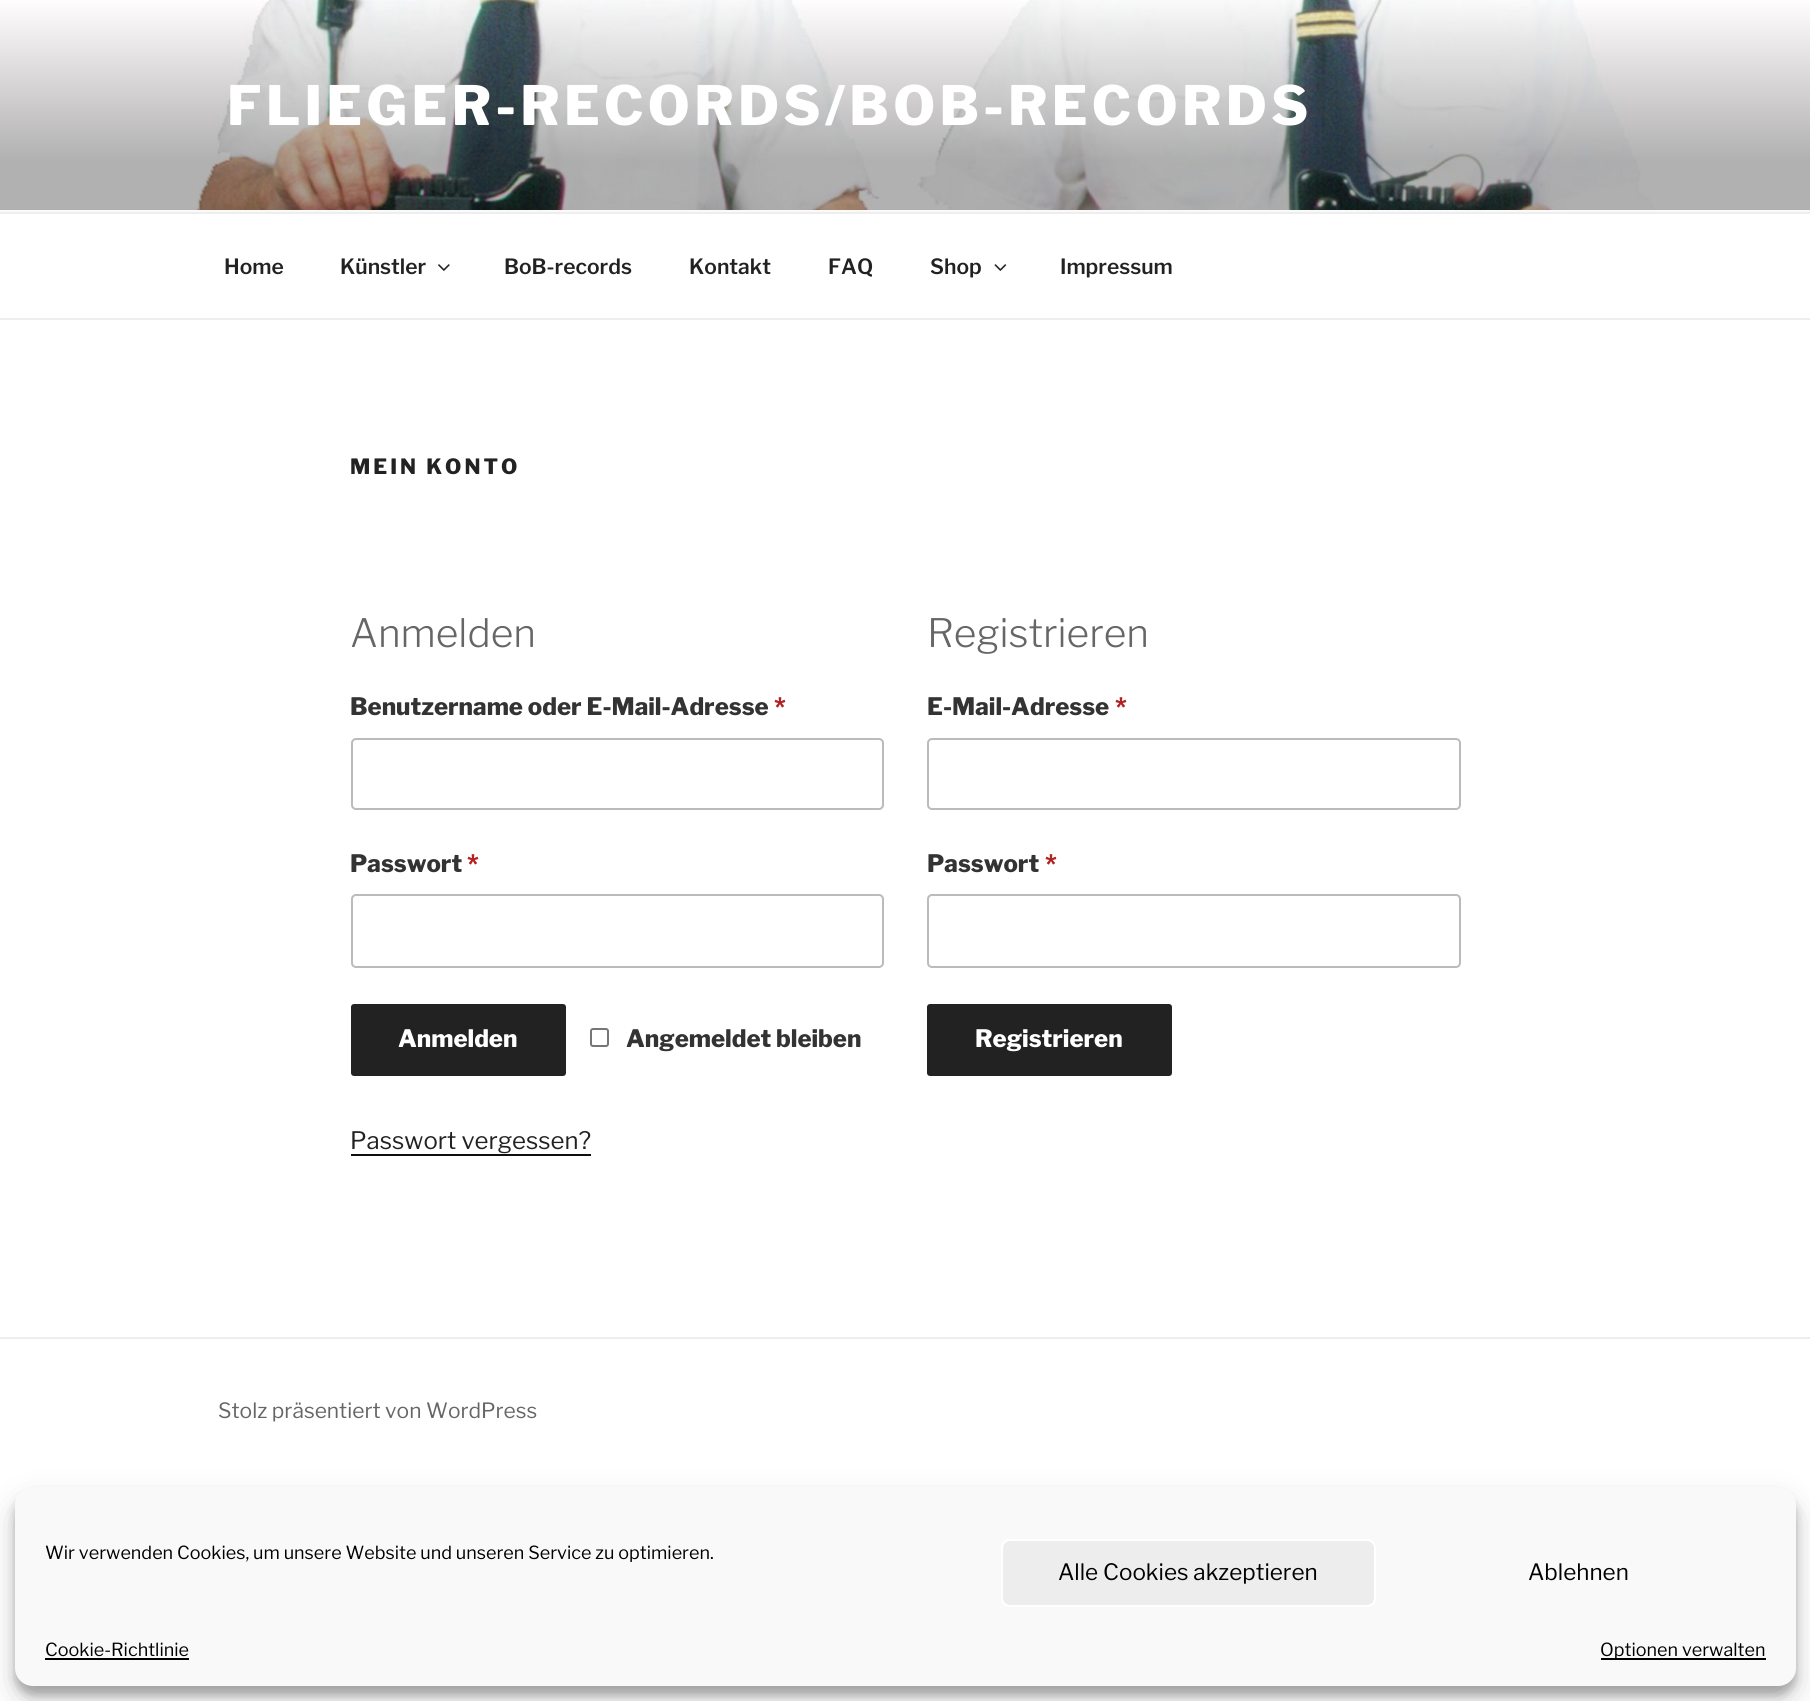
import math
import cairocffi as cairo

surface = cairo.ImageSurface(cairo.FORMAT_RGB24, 1810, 1701)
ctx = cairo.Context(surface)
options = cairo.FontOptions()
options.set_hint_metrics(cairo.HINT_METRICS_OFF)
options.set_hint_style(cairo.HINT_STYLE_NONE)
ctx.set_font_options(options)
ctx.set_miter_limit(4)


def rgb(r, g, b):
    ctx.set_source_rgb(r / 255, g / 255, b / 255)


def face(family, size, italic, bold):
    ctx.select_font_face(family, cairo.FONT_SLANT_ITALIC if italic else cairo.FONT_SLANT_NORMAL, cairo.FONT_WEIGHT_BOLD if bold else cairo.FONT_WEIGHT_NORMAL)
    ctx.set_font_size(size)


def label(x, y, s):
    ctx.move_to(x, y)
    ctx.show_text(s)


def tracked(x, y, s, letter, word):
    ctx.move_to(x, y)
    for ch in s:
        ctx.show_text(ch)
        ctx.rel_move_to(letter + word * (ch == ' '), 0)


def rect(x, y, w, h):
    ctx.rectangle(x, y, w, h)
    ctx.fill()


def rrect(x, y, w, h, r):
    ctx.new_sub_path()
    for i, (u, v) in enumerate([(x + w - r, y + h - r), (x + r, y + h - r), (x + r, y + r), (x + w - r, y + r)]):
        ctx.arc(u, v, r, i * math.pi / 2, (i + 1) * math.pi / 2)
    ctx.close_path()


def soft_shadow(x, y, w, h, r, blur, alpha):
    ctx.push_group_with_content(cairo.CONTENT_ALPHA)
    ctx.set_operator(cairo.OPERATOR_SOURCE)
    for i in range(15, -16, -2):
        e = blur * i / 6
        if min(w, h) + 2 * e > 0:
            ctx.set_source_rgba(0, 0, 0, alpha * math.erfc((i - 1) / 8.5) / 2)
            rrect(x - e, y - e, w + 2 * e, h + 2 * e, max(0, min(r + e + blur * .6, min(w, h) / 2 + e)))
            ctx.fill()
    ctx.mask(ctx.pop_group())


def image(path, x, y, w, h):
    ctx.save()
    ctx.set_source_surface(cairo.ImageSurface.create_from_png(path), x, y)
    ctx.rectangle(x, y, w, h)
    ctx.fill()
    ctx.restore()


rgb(255, 255, 255)
ctx.paint()
rgb(250, 250, 250)
rect(0, 210, 1810, 2)
image('image0.png', 0, 0, 1810, 210)
face('Libre Franklin Thin', 54, 0, 0)
rgb(255, 255, 255)
tracked(227, 125, 'FLIEGER-RECORDS/BOB-RECORDS', 4.3, 0)
rgb(238, 238, 238)
rect(0, 212, 1810, 2)
rect(0, 318, 1810, 2)
face('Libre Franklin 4 Thin', 21, 0, 0)
rgb(34, 34, 34)
label(224, 274, 'Home')
label(340, 274, 'Künstler')
image('image1.png', 438, 264, 12, 7)
label(504, 274, 'BoB-records')
label(689, 274, 'Kontakt')
label(828, 274, 'FAQ')
label(930, 274, 'Shop')
image('image2.png', 994, 264, 13, 7)
label(1060, 274, 'Impressum')
face('Libre Franklin Thin', 21, 0, 0)
tracked(350, 474, 'MEIN KONTO', 3, 0)
face('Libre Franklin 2 Thin', 39, 0, 0)
rgb(102, 102, 102)
label(350, 647, 'Anmelden')
face('Libre Franklin Thin', 24, 0, 0)
rgb(51, 51, 51)
label(350, 715, 'Benutzername oder E-Mail-Adresse')
rgb(178, 34, 34)
label(774, 715, '*')
rrect(352, 739, 531, 70, 4)
rgb(187, 187, 187)
ctx.stroke()
rgb(51, 51, 51)
label(350, 872, 'Passwort')
rgb(178, 34, 34)
label(467, 872, '*')
rrect(352, 895, 531, 72, 4)
rgb(187, 187, 187)
ctx.stroke()
rgb(34, 34, 34)
rrect(351, 1004, 215, 72, 3)
ctx.fill()
rgb(255, 255, 255)
label(398, 1047, 'Anmelden')
rrect(591, 1029, 17, 17, 2)
rgb(118, 118, 118)
ctx.stroke()
rgb(51, 51, 51)
label(626, 1047, 'Angemeldet bleiben')
face('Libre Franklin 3 Thin', 24, 0, 0)
rgb(34, 34, 34)
label(350, 1149, 'Passwort vergessen?')
rgb(15, 15, 15)
rect(351, 1154, 240, 2)
face('Libre Franklin 2 Thin', 39, 0, 0)
rgb(102, 102, 102)
label(927, 647, 'Registrieren')
face('Libre Franklin Thin', 24, 0, 0)
rgb(51, 51, 51)
label(927, 715, 'E-Mail-Adresse')
rgb(178, 34, 34)
label(1115, 715, '*')
rrect(928, 739, 532, 70, 4)
rgb(187, 187, 187)
ctx.stroke()
rgb(51, 51, 51)
label(927, 872, 'Passwort')
rgb(178, 34, 34)
label(1045, 872, '*')
rrect(928, 895, 532, 72, 4)
rgb(187, 187, 187)
ctx.stroke()
rgb(34, 34, 34)
rrect(927, 1004, 245, 72, 3)
ctx.fill()
rgb(255, 255, 255)
label(975, 1047, 'Registrieren')
rgb(238, 238, 238)
rect(0, 1337, 1810, 2)
face('Libre Franklin 3 Thin', 21, 0, 0)
rgb(102, 102, 102)
label(218, 1418, 'Stolz präsentiert von WordPress')
rgb(0, 0, 0)
soft_shadow(15, 1496, 1781, 199, 18, 4.5, 0.23)
soft_shadow(15, 1502, 1781, 199, 18, 15, 0.19)
rgb(249, 249, 249)
rrect(15, 1487, 1781, 199, 18)
ctx.fill()
face('Libre Franklin 3 Thin', 18, 0, 0)
rgb(0, 0, 0)
label(45, 1559, 'Wir verwenden Cookies, um unsere Website und unseren Service zu optimieren.')
rgb(237, 237, 237)
rrect(1002, 1540, 373, 66, 8)
ctx.fill_preserve()
rgb(255, 255, 255)
ctx.stroke()
face('Libre Franklin 3 Thin', 22.5, 0, 0)
rgb(0, 0, 0)
label(1058, 1580, 'Alle Cookies akzeptieren')
label(1528, 1580, 'Ablehnen')
face('Libre Franklin 3 Thin', 18, 0, 0)
label(45, 1656, 'Cookie-Richtlinie')
rect(45, 1658, 144, 2)
rect(1601, 1658, 165, 2)
label(1600, 1656, 'Optionen verwalten')
surface.write_to_png('render.png')
